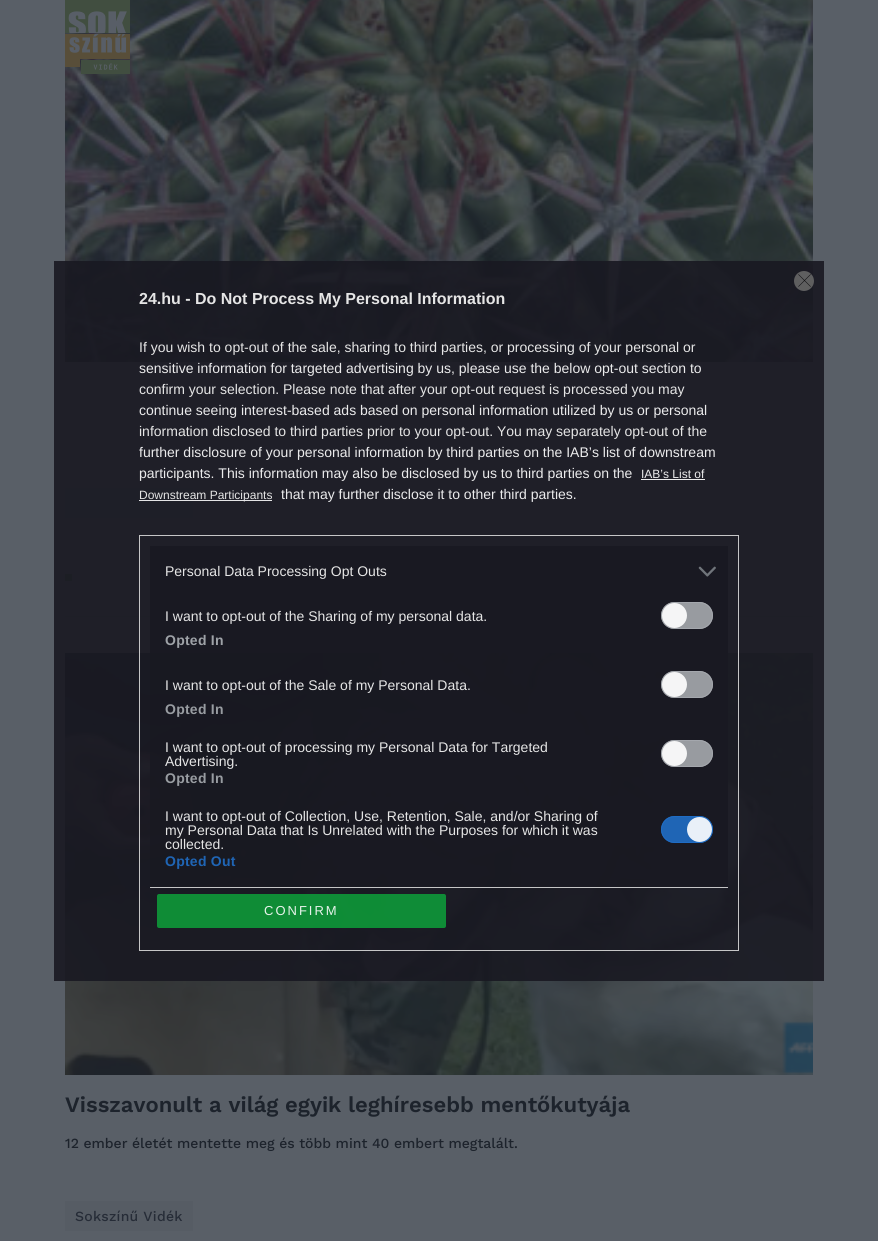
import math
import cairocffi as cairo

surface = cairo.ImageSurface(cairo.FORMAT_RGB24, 878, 1241)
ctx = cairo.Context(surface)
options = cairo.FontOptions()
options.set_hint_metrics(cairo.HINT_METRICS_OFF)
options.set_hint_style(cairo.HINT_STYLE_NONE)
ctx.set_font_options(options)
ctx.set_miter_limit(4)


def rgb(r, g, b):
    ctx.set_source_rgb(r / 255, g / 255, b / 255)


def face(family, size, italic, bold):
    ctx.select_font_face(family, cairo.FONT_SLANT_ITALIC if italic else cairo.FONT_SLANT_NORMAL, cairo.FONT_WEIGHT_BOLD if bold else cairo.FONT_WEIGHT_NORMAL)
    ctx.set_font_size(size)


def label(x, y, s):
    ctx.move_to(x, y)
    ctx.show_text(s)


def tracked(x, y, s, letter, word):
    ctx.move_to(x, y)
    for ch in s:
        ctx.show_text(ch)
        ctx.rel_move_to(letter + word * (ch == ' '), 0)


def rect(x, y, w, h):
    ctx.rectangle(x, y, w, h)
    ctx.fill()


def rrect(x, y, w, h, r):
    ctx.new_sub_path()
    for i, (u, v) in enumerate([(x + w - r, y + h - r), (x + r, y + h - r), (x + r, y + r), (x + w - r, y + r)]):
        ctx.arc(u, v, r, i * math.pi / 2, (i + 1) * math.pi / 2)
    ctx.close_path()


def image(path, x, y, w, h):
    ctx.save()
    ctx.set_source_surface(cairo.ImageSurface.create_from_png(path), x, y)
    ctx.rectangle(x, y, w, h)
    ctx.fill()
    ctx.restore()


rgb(89, 95, 103)
ctx.paint()
rgb(81, 87, 96)
rect(65, 616, 748, 1)
image('image2.png', 65, 0, 748, 362)
rgb(86, 92, 100)
rect(65, 488, 128, 30)
rgb(65, 78, 64)
rect(65, 574, 7, 7)
image('image3.png', 65, 653, 748, 422)
ctx.set_source_rgba(0.098, 0.098, 0.133, 0.9)
rect(54, 261, 770, 720)
ctx.set_source_rgba(0.4, 0.4, 0.4, 0.9)
ctx.arc(804, 281, 10, 0, 2 * math.pi)
ctx.fill()
ctx.new_path()
ctx.move_to(798.5, 274.5)
ctx.line_to(810.5, 286.5)
ctx.move_to(810.5, 274.5)
ctx.line_to(798.5, 286.5)
rgb(9, 9, 10)
ctx.set_line_width(0.5)
ctx.set_line_cap(cairo.LINE_CAP_ROUND)
ctx.set_line_join(cairo.LINE_JOIN_ROUND)
ctx.stroke()
face('Liberation Sans', 16, 0, 1)
rgb(229, 229, 229)
label(139, 304, '24.hu -')
label(195, 304, 'Do Not Process My Personal Information')
face('Liberation Sans', 14, 0, 0)
label(139, 352, 'If you wish to opt-out of the sale, sharing to third parties, or processing of your personal or')
rgb(235, 235, 236)
label(139, 373, 'sensitive information for targeted advertising by us, please use the below opt-out section to')
rgb(229, 229, 229)
label(139, 394, 'confirm your selection. Please note that after your opt-out request is processed you may')
rgb(235, 235, 236)
label(139, 415, 'continue seeing interest-based ads based on personal information utilized by us or personal')
rgb(229, 229, 229)
label(139, 436, 'information disclosed to third parties prior to your opt-out. You may separately opt-out of the')
rgb(235, 235, 236)
label(139, 457, 'further disclosure of your personal information by third parties on the IAB’s list of downstream')
label(139, 478, 'participants. This information may also be disclosed by us to third parties on the')
face('Liberation Sans', 12, 0, 0)
label(641, 478, 'IAB’s List of')
rect(641, 479, 64, 1)
ctx.set_source_rgba(0.984, 0.984, 0.984, 0.9)
rect(139, 500, 133, 1)
rgb(229, 229, 229)
label(139, 499, 'Downstream Participants')
face('Liberation Sans', 14, 0, 0)
rgb(235, 235, 236)
label(281, 499, 'that may further disclose it to other third parties.')
ctx.rectangle(139.5, 535.5, 599, 415)
ctx.set_source_rgba(0.847, 0.847, 0.847, 0.9)
ctx.set_line_width(1)
ctx.set_line_cap(cairo.LINE_CAP_BUTT)
ctx.set_line_join(cairo.LINE_JOIN_MITER)
ctx.stroke()
ctx.set_source_rgba(0.098, 0.098, 0.133, 0.9)
rect(150, 546, 578, 341)
rgb(197, 197, 198)
rect(150, 887, 578, 1)
rgb(229, 229, 229)
label(165, 576, 'Personal Data Processing Opt Outs')
image('image0.png', 698, 566, 18, 11)
label(165, 621, 'I want to opt-out of the Sharing of my personal data.')
rgb(152, 155, 160)
rrect(661, 602, 52, 27, 13.5)
ctx.fill()
rrect(661.5, 602.5, 51, 26, 13)
ctx.set_source_rgba(0.651, 0.663, 0.682, 0.9)
ctx.stroke()
ctx.set_source_rgba(1, 1, 1, 0.9)
ctx.arc(674.5, 615.5, 12.5, 0, 2 * math.pi)
ctx.fill()
face('Liberation Sans', 14, 0, 1)
rgb(158, 162, 167)
tracked(165, 645, 'Opted In', 0.25, 0)
face('Liberation Sans', 14, 0, 0)
rgb(229, 229, 229)
label(165, 690, 'I want to opt-out of the Sale of my Personal Data.')
rgb(152, 155, 160)
rrect(661, 671, 52, 27, 13.5)
ctx.fill()
rrect(661.5, 671.5, 51, 26, 13)
ctx.set_source_rgba(0.651, 0.663, 0.682, 0.9)
ctx.stroke()
ctx.set_source_rgba(1, 1, 1, 0.9)
ctx.arc(674.5, 684.5, 12.5, 0, 2 * math.pi)
ctx.fill()
face('Liberation Sans', 14, 0, 1)
rgb(152, 156, 161)
tracked(165, 714, 'Opted In', 0.25, 0)
face('Liberation Sans', 14, 0, 0)
rgb(229, 229, 229)
label(165, 752, 'I want to opt-out of processing my Personal Data for Targeted')
label(165, 766, 'Advertising.')
rgb(152, 155, 160)
rrect(661, 740, 52, 27, 13.5)
ctx.fill()
rrect(661.5, 740.5, 51, 26, 13)
ctx.set_source_rgba(0.651, 0.663, 0.682, 0.9)
ctx.stroke()
ctx.set_source_rgba(1, 1, 1, 0.9)
ctx.arc(674.5, 753.5, 12.5, 0, 2 * math.pi)
ctx.fill()
face('Liberation Sans', 14, 0, 1)
rgb(152, 156, 161)
tracked(165, 783, 'Opted In', 0.25, 0)
face('Liberation Sans', 14, 0, 0)
rgb(229, 229, 229)
label(165, 821, 'I want to opt-out of Collection, Use, Retention, Sale, and/or Sharing of')
label(165, 835, 'my Personal Data that Is Unrelated with the Purposes for which it was')
label(165, 849, 'collected.')
rgb(31, 101, 181)
rrect(661, 816, 52, 27, 13.5)
ctx.fill()
rrect(661.5, 816.5, 51, 26, 13)
ctx.set_source_rgba(0.125, 0.427, 0.773, 0.9)
ctx.stroke()
ctx.set_source_rgba(1, 1, 1, 0.9)
ctx.arc(699.5, 829.5, 12.5, 0, 2 * math.pi)
ctx.fill()
face('Liberation Sans', 14, 0, 1)
rgb(31, 101, 181)
tracked(165, 866, 'Opted Out', 0.25, 0)
ctx.set_source_rgba(0.055, 0.596, 0.224, 0.9)
rrect(157, 894, 289, 34, 2)
ctx.fill()
face('Liberation Sans', 13, 0, 0)
rgb(231, 243, 235)
tracked(264, 915, 'CONFIRM', 2, 0)
image('image1.png', 65, 0, 65, 74)
face('Work Sans SemiBold', 22, 0, 0)
rgb(29, 35, 44)
label(65, 1112, 'Visszavonult a világ egyik leghíresebb mentőkutyája')
face('Work Sans Medium', 14, 0, 0)
label(65, 1148, '12 ember életét mentette meg és több mint 40 embert megtalált.')
rgb(86, 92, 100)
rect(65, 1201, 128, 30)
rgb(38, 44, 55)
tracked(75, 1221, 'Sokszínű Vidék', 0.25, 0)
surface.write_to_png('render.png')
